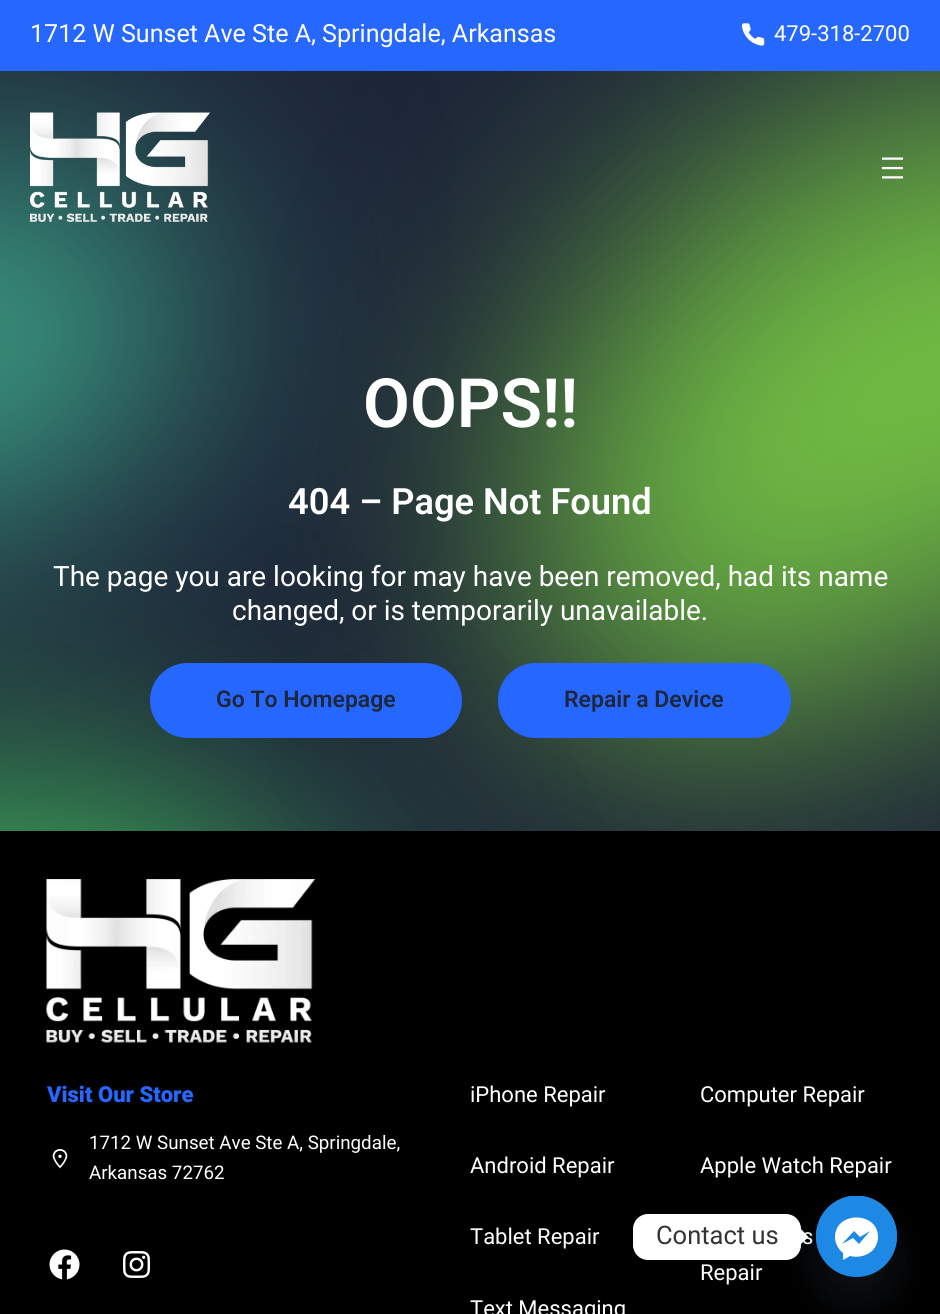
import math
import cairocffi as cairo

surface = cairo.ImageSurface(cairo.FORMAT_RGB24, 940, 1314)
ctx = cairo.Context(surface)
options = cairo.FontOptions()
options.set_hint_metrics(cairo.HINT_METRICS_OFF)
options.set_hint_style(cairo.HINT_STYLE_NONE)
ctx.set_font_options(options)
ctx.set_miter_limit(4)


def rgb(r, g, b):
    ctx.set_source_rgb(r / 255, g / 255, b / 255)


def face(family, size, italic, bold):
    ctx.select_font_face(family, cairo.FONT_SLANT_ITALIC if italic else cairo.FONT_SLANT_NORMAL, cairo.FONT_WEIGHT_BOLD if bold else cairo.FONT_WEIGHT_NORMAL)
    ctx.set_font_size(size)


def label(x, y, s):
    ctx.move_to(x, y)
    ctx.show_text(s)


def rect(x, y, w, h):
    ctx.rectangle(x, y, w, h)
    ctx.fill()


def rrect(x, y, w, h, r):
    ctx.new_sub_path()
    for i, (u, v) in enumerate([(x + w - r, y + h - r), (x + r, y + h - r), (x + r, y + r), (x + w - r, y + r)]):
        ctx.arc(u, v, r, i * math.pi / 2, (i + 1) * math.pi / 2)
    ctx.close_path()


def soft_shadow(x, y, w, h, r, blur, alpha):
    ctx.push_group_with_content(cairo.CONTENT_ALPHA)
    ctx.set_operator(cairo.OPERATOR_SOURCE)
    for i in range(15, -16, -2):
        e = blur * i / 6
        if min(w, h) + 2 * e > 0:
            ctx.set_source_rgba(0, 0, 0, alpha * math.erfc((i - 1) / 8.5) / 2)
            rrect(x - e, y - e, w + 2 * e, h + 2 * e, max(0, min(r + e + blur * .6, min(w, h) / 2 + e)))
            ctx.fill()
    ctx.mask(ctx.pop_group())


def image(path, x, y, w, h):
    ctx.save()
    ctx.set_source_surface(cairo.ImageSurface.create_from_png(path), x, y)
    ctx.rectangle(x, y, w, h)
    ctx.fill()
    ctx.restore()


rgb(255, 255, 255)
ctx.paint()
rgb(38, 103, 255)
rect(0, 0, 940, 71)
face('Roboto', 25.05, 0, 0)
rgb(255, 255, 255)
label(30, 42, '1712 W Sunset Ave Ste A, Springdale, Arkansas')
image('image0.png', 741, 23, 24, 23)
face('Roboto', 22, 0, 0)
label(774, 41, '479-318-2700')
image('image7.png', 0, 71, 940, 760)
image('image1.png', 30, 112, 180, 110)
image('image2.png', 882, 157, 21, 22)
face('Roboto SemiBold', 68, 0, 0)
label(363, 427, 'OOPS!!')
face('Roboto SemiBold', 36.25, 0, 0)
label(288, 514, '404 – Page Not Found')
face('Roboto', 27.95, 0, 0)
label(53, 586, 'The page you are looking for may have been removed, had its name')
label(232, 620, 'changed, or is temporarily unavailable.')
rgb(38, 103, 255)
rrect(150, 663, 312, 75, 37.5)
ctx.fill()
face('Roboto SemiBold', 23, 0, 0)
rgb(30, 38, 57)
label(216, 707, 'Go To Homepage')
rgb(38, 103, 255)
rrect(498, 663, 293, 75, 37.5)
ctx.fill()
rgb(30, 38, 57)
label(564, 707, 'Repair a Device')
rgb(0, 0, 0)
rect(0, 831, 940, 483)
image('image3.png', 46, 879, 269, 164)
face('Roboto Black', 22, 0, 0)
rgb(38, 103, 255)
label(47, 1102, 'Visit Our Store')
image('image4.png', 52, 1149, 16, 20)
face('Roboto', 18.75, 0, 0)
rgb(255, 255, 255)
label(89, 1149, '1712 W Sunset Ave Ste A, Springdale,')
label(89, 1179, 'Arkansas 72762')
image('image5.png', 49, 1249, 31, 31)
image('image6.png', 123, 1251, 27, 27)
face('Roboto', 22, 0, 0)
label(470, 1102, 'iPhone Repair')
label(470, 1173, 'Android Repair')
label(470, 1244, 'Tablet Repair')
label(470, 1316, 'Text Messaging')
label(700, 1102, 'Computer Repair')
label(700, 1173, 'Apple Watch Repair')
label(802, 1244, 's')
label(700, 1280, 'Repair')
rgb(73, 104, 126)
soft_shadow(816, 1220, 81, 81, 40.5, 18, 0.16)
rgb(30, 136, 229)
ctx.arc(856.5, 1236.5, 40.5, 0, 2 * math.pi)
ctx.fill()
ctx.save()
ctx.rectangle(816, 1196, 81, 81)
ctx.clip()
ctx.arc(856.5, 1236, 40.5, 0, 2 * math.pi)
ctx.fill()
ctx.restore()
rgb(0, 0, 0)
soft_shadow(633, 1215, 168, 47, 15, 6, 0.15)
rgb(255, 255, 255)
rrect(633, 1214, 168, 46, 15)
ctx.fill()
face('Roboto', 25.5, 0, 0)
rgb(51, 51, 51)
label(656, 1244, 'Contact us')
rgb(255, 255, 255)
ctx.new_path()
ctx.move_to(801, 1244)
ctx.line_to(801, 1229)
ctx.line_to(808.5, 1237)
ctx.close_path()
ctx.fill()
ctx.set_fill_rule(cairo.FILL_RULE_EVEN_ODD)
ctx.new_path()
ctx.move_to(835, 1237)
ctx.curve_to(835, 1211, 878, 1211, 878, 1237)
ctx.curve_to(878, 1242, 876, 1247, 872, 1251)
ctx.curve_to(866, 1256, 858, 1258, 850, 1256)
ctx.line_to(843, 1260)
ctx.line_to(843, 1253)
ctx.curve_to(838, 1249, 835, 1243, 835, 1237)
ctx.close_path()
ctx.move_to(853, 1238)
ctx.line_to(859, 1244)
ctx.line_to(870, 1231)
ctx.line_to(860, 1237)
ctx.line_to(854, 1231)
ctx.line_to(842, 1244)
ctx.close_path()
ctx.fill()
surface.write_to_png('render.png')
